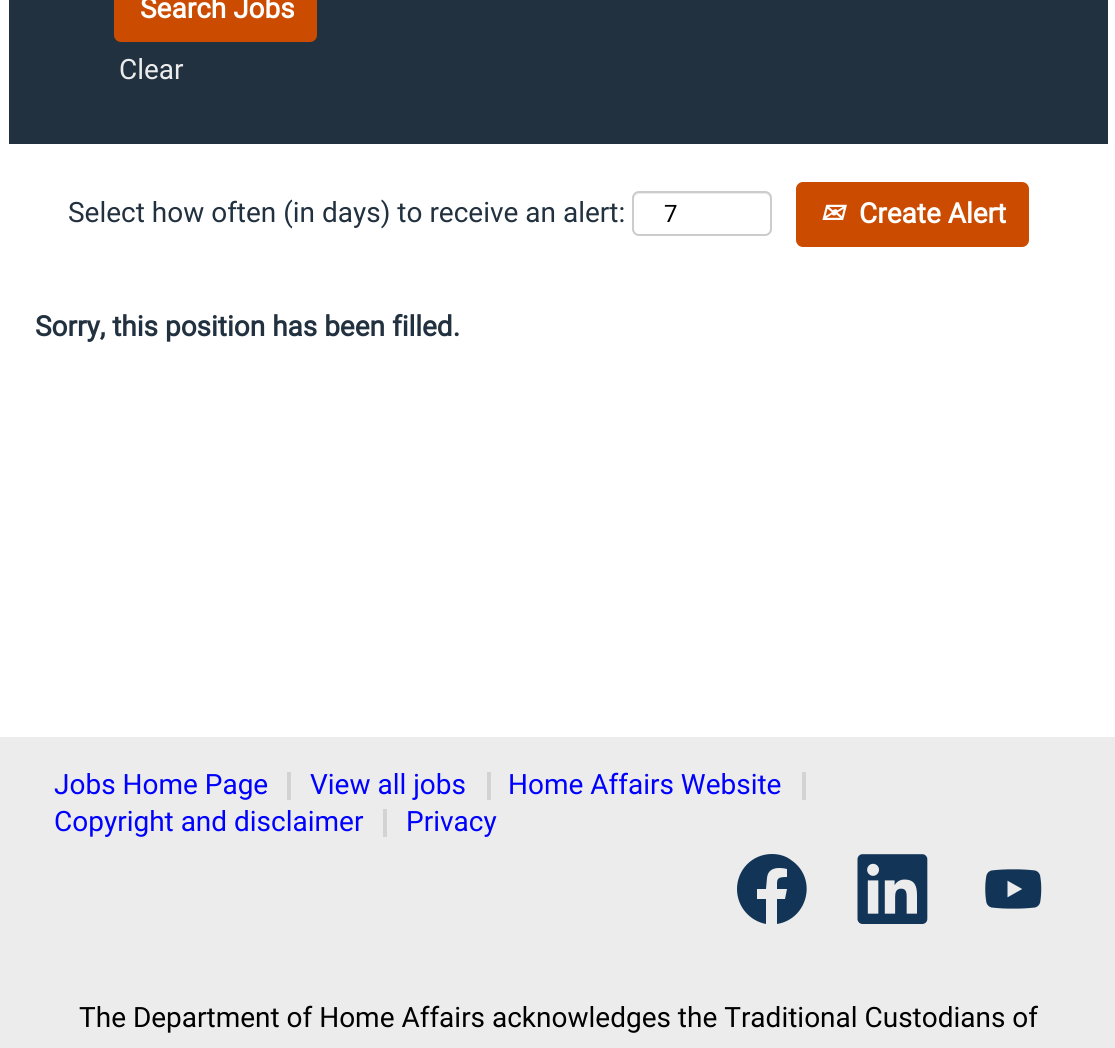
import math
import cairocffi as cairo

surface = cairo.ImageSurface(cairo.FORMAT_RGB24, 1115, 1048)
ctx = cairo.Context(surface)
options = cairo.FontOptions()
options.set_hint_metrics(cairo.HINT_METRICS_OFF)
options.set_hint_style(cairo.HINT_STYLE_NONE)
ctx.set_font_options(options)
ctx.set_miter_limit(4)


def rgb(r, g, b):
    ctx.set_source_rgb(r / 255, g / 255, b / 255)


def face(family, size, italic, bold):
    ctx.select_font_face(family, cairo.FONT_SLANT_ITALIC if italic else cairo.FONT_SLANT_NORMAL, cairo.FONT_WEIGHT_BOLD if bold else cairo.FONT_WEIGHT_NORMAL)
    ctx.set_font_size(size)


def label(x, y, s):
    ctx.move_to(x, y)
    ctx.show_text(s)


def rect(x, y, w, h):
    ctx.rectangle(x, y, w, h)
    ctx.fill()


def rrect(x, y, w, h, r):
    ctx.new_sub_path()
    for i, (u, v) in enumerate([(x + w - r, y + h - r), (x + r, y + h - r), (x + r, y + r), (x + w - r, y + r)]):
        ctx.arc(u, v, r, i * math.pi / 2, (i + 1) * math.pi / 2)
    ctx.close_path()


def image(path, x, y, w, h):
    ctx.save()
    ctx.set_source_surface(cairo.ImageSurface.create_from_png(path), x, y)
    ctx.rectangle(x, y, w, h)
    ctx.fill()
    ctx.restore()


rgb(255, 255, 255)
ctx.paint()
rgb(34, 49, 63)
rect(9, 0, 1099, 144)
rgb(203, 75, 0)
rrect(114, -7, 203, 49, 7)
ctx.fill()
face('Roboto', 28, 0, 1)
rgb(255, 255, 255)
label(140, 18, 'Search Jobs')
face('Roboto', 28, 0, 0)
rgb(236, 236, 236)
label(119, 79, 'Clear')
rgb(34, 49, 63)
label(68, 222, 'Select how often (in days) to receive an alert:')
rgb(236, 236, 236)
ctx.new_path()
ctx.move_to(639, 194)
ctx.line_to(765, 194)
ctx.curve_to(768, 194, 770, 197, 770, 200)
ctx.line_to(770, 198)
ctx.curve_to(770, 195, 768, 193, 765, 193)
ctx.line_to(639, 193)
ctx.curve_to(636, 193, 634, 195, 634, 198)
ctx.line_to(634, 200)
ctx.curve_to(634, 197, 636, 194, 639, 194)
ctx.close_path()
ctx.fill()
rrect(633, 192, 138, 43, 6)
rgb(204, 204, 204)
ctx.stroke()
face('Roboto', 24, 0, 0)
rgb(0, 0, 0)
label(664, 222, '7')
rgb(203, 75, 0)
rrect(796, 182, 233, 65, 7)
ctx.fill()
face('DejaVu Sans', 28, 1, 1)
rgb(255, 255, 255)
label(820, 223, '✉')
face('Roboto', 28, 0, 1)
label(859, 223, 'Create Alert')
rgb(34, 49, 63)
label(35, 336, 'Sorry, this position has been filled.')
rgb(236, 236, 236)
rect(0, 737, 1115, 311)
rgb(211, 211, 211)
rect(287, 772, 4, 28)
face('Roboto', 28, 0, 0)
rgb(0, 0, 255)
label(54, 794, 'Jobs Home Page')
rgb(211, 211, 211)
rect(487, 772, 4, 28)
rgb(0, 0, 255)
label(310, 794, 'View all jobs')
rgb(211, 211, 211)
rect(802, 772, 4, 28)
rgb(0, 0, 255)
label(508, 794, 'Home Affairs Website')
rgb(211, 211, 211)
rect(383, 809, 4, 28)
rgb(0, 0, 255)
label(54, 831, 'Copyright and disclaimer')
label(406, 831, 'Privacy')
rgb(18, 52, 86)
ctx.new_path()
ctx.move_to(772, 854)
ctx.curve_to(752, 854, 737, 870, 737, 889)
ctx.curve_to(737, 907, 750, 921, 766, 924)
ctx.line_to(766, 899)
ctx.line_to(757, 899)
ctx.line_to(757, 889)
ctx.line_to(766, 889)
ctx.line_to(767, 878)
ctx.curve_to(768, 867, 779, 867, 787, 869)
ctx.line_to(787, 877)
ctx.curve_to(776, 877, 777, 879, 777, 889)
ctx.line_to(787, 889)
ctx.line_to(785, 899)
ctx.line_to(777, 899)
ctx.line_to(777, 924)
ctx.curve_to(808, 919, 818, 878, 791, 860)
ctx.curve_to(786, 856, 779, 854, 772, 854)
ctx.close_path()
ctx.fill()
image('image0.png', 857, 854, 71, 70)
image('image1.png', 985, 869, 57, 40)
rgb(0, 0, 0)
label(79, 1027, 'The Department of Home Affairs acknowledges the Traditional Custodians of')
surface.write_to_png('render.png')
